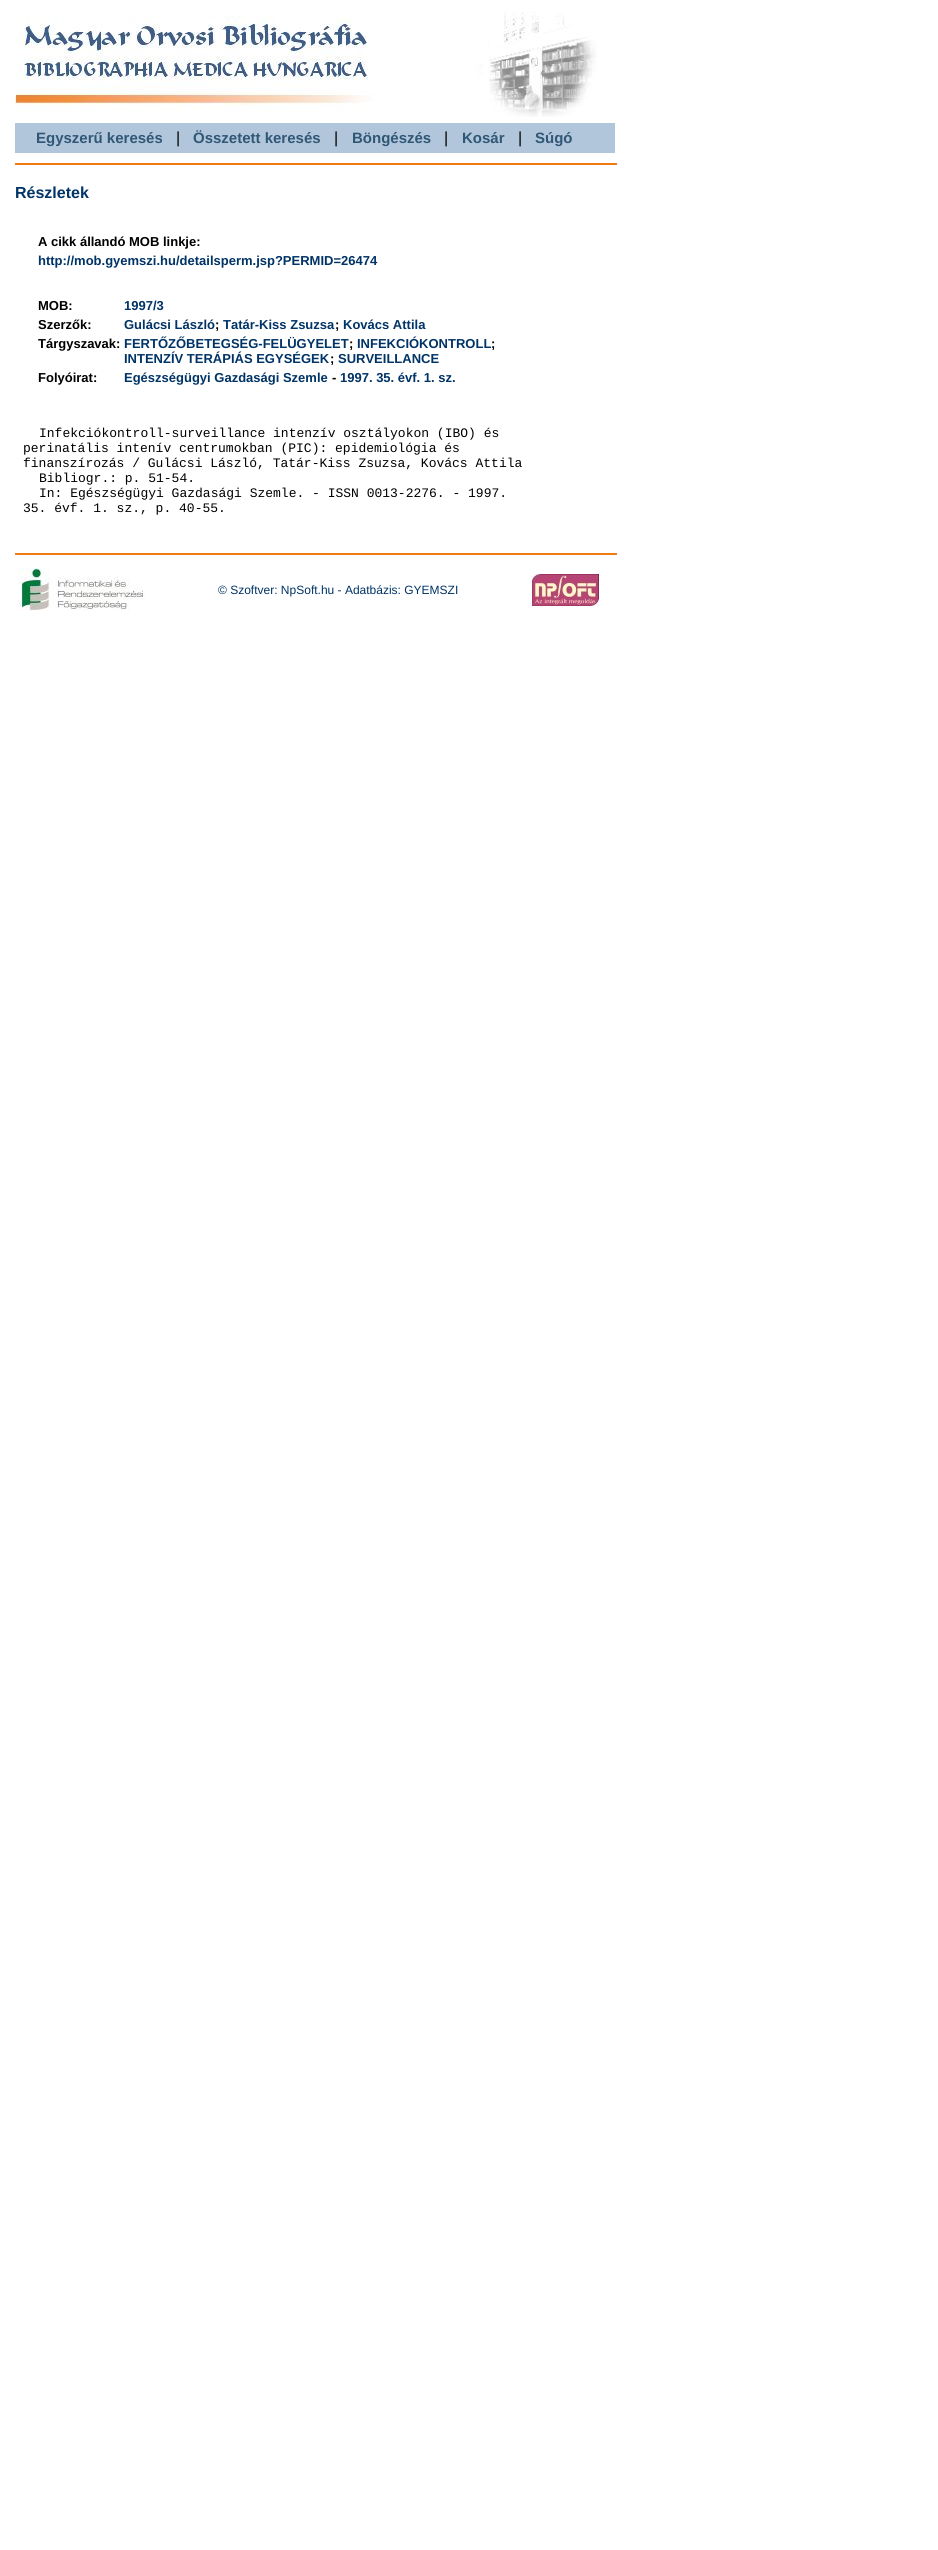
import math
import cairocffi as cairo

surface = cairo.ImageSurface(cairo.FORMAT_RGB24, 938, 2550)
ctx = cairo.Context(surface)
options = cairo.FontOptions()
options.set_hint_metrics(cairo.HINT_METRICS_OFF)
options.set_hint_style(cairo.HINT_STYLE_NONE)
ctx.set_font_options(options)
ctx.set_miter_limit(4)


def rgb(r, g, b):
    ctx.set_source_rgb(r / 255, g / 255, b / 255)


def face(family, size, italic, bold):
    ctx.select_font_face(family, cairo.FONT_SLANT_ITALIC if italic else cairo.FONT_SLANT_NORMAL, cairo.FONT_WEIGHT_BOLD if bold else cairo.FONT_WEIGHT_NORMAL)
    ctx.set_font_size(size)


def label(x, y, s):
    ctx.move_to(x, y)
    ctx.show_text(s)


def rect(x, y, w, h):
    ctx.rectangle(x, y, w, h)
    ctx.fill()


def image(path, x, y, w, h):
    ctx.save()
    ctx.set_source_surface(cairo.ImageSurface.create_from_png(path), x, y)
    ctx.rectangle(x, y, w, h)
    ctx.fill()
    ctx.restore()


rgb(255, 255, 255)
ctx.paint()
image('image0.png', 15, 12, 582, 105)
rgb(177, 198, 219)
rect(15, 123, 600, 30)
face('Liberation Sans', 15, 0, 1)
rgb(48, 87, 118)
label(36, 143, 'Egyszerű keresés')
face('Liberation Sans', 16, 0, 0)
rgb(0, 0, 0)
label(176, 143, '|')
face('Liberation Sans', 15, 0, 1)
rgb(48, 87, 118)
label(193, 143, 'Összetett keresés')
face('Liberation Sans', 16, 0, 0)
rgb(0, 0, 0)
label(334, 143, '|')
face('Liberation Sans', 15, 0, 1)
rgb(48, 87, 118)
label(352, 143, 'Böngészés')
face('Liberation Sans', 16, 0, 0)
rgb(0, 0, 0)
label(444, 143, '|')
face('Liberation Sans', 15, 0, 1)
rgb(48, 87, 118)
label(462, 143, 'Kosár')
face('Liberation Sans', 16, 0, 0)
rgb(0, 0, 0)
label(518, 143, '|')
face('Liberation Sans', 15, 0, 1)
rgb(48, 87, 118)
label(535, 143, 'Súgó')
rgb(241, 122, 20)
rect(15, 163, 602, 2)
face('Liberation Sans', 16, 0, 1)
rgb(0, 51, 102)
label(15, 198, 'Részletek')
face('Liberation Sans', 13, 0, 1)
rgb(0, 0, 0)
label(38, 246, 'A cikk állandó MOB linkje:')
rgb(0, 51, 102)
label(38, 265, 'http://mob.gyemszi.hu/detailsperm.jsp?PERMID=26474')
rgb(0, 0, 0)
label(38, 310, 'MOB:')
rgb(0, 51, 102)
label(124, 310, '1997/3')
rgb(0, 0, 0)
label(38, 329, 'Szerzők:')
rgb(0, 51, 102)
label(124, 329, 'Gulácsi László')
rgb(0, 0, 0)
label(215, 329, ';')
rgb(0, 51, 102)
label(223, 329, 'Tatár-Kiss Zsuzsa')
rgb(0, 0, 0)
label(335, 329, ';')
rgb(0, 51, 102)
label(343, 329, 'Kovács Attila')
rgb(0, 0, 0)
label(38, 348, 'Tárgyszavak:')
rgb(0, 51, 102)
label(124, 348, 'FERTŐZŐBETEGSÉG-FELÜGYELET')
rgb(0, 0, 0)
label(349, 348, ';')
rgb(0, 51, 102)
label(357, 348, 'INFEKCIÓKONTROLL')
rgb(0, 0, 0)
label(491, 348, ';')
rgb(0, 51, 102)
label(124, 363, 'INTENZÍV TERÁPIÁS EGYSÉGEK')
rgb(0, 0, 0)
label(330, 363, ';')
rgb(0, 51, 102)
label(338, 363, 'SURVEILLANCE')
rgb(0, 0, 0)
label(38, 382, 'Folyóirat:')
rgb(0, 51, 102)
label(124, 382, 'Egészségügyi Gazdasági Szemle')
rgb(0, 0, 0)
label(332, 382, '-')
rgb(0, 51, 102)
label(340, 382, '1997. 35. évf. 1. sz.')
face('Liberation Mono', 13, 0, 0)
rgb(0, 0, 0)
label(39, 437, 'Infekciókontroll-surveillance intenzív osztályokon (IBO) és')
label(23, 452, 'perinatális intenív centrumokban (PIC): epidemiológia és')
label(23, 467, 'finanszírozás / Gulácsi László, Tatár-Kiss Zsuzsa, Kovács Attila')
label(39, 482, 'Bibliogr.: p. 51-54.')
label(39, 497, 'In: Egészségügyi Gazdasági Szemle. - ISSN 0013-2276. - 1997.')
label(23, 512, '35. évf. 1. sz., p. 40-55.')
rgb(241, 122, 20)
rect(15, 553, 602, 2)
image('image1.png', 18, 568, 127, 43)
face('Liberation Sans', 12, 0, 0)
rgb(0, 51, 102)
label(218, 594, '© Szoftver: NpSoft.hu - Adatbázis: GYEMSZI')
image('image2.png', 532, 574, 67, 32)
surface.write_to_png('render.png')
